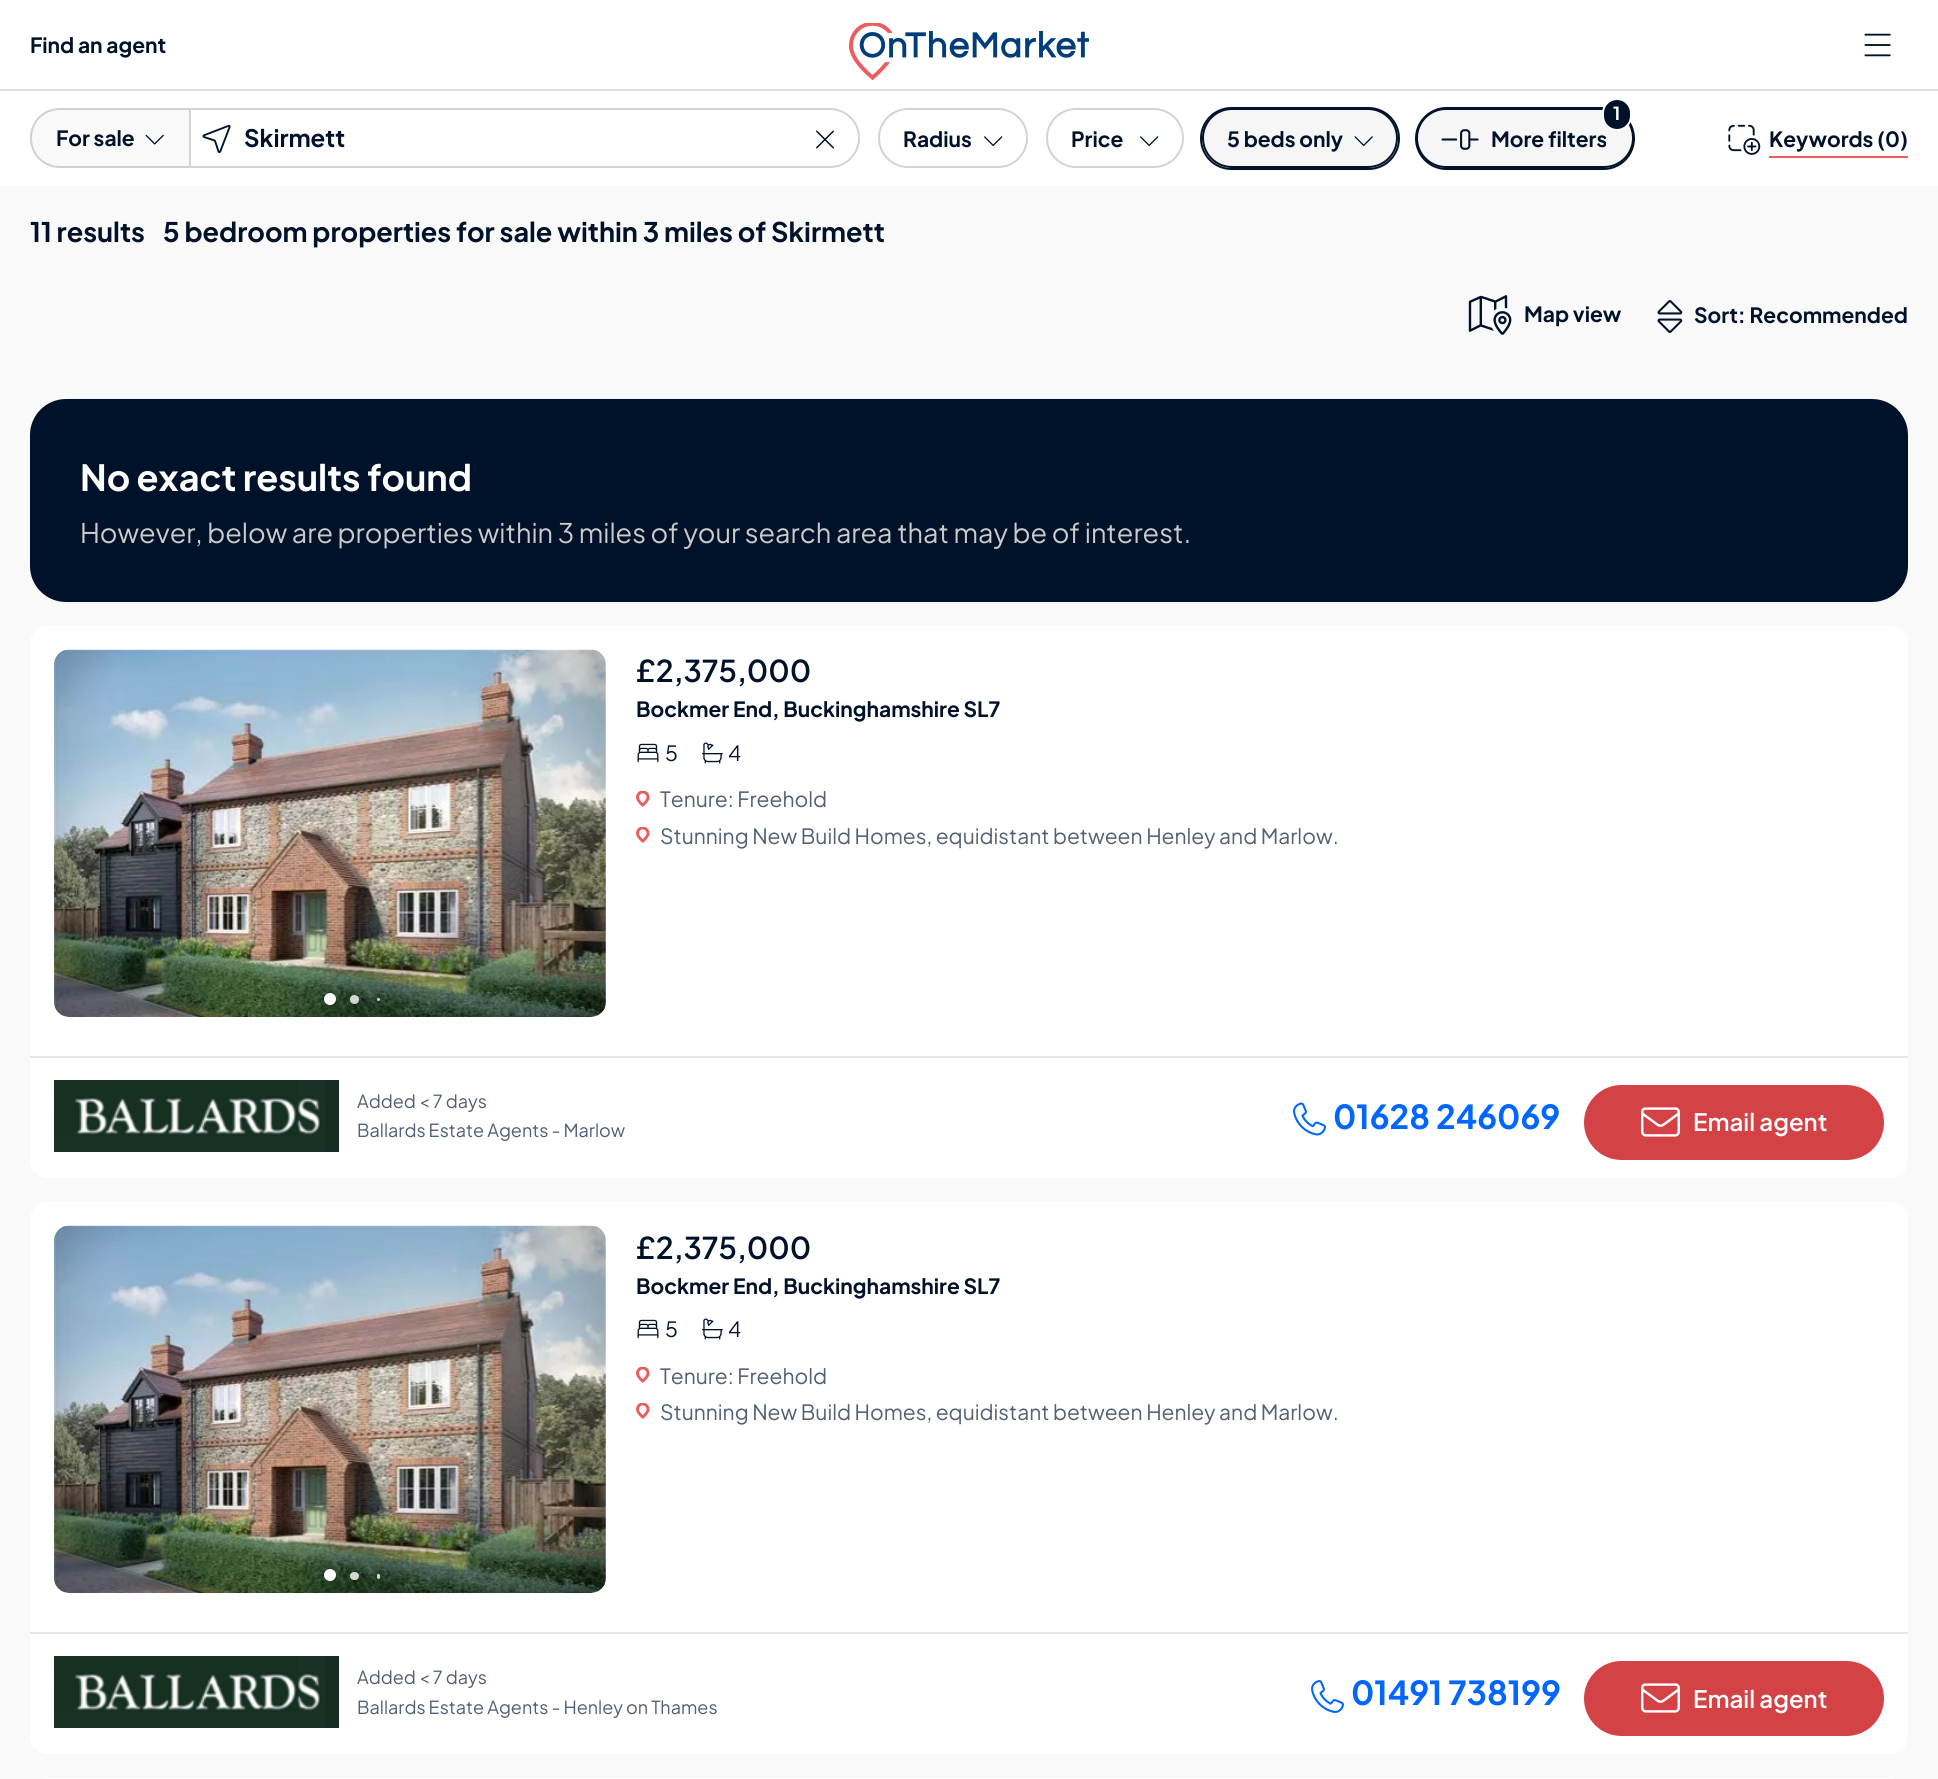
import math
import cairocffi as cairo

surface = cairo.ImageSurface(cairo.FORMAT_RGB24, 1938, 1779)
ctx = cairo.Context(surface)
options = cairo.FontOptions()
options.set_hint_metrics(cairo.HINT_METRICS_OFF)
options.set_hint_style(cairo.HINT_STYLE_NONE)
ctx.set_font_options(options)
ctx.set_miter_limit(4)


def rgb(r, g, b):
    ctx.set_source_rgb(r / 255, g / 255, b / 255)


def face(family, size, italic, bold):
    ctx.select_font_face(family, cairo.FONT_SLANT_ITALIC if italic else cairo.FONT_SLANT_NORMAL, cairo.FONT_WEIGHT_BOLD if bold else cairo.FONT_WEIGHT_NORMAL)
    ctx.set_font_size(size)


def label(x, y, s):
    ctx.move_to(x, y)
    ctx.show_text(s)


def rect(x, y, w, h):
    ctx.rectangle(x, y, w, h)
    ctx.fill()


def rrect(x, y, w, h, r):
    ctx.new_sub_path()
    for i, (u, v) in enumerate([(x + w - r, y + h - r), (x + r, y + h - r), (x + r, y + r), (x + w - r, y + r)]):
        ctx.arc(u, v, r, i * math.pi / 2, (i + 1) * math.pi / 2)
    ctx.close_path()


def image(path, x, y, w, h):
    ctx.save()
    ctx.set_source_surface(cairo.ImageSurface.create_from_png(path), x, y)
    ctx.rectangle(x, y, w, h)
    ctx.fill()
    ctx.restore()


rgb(255, 255, 255)
ctx.paint()
rgb(217, 220, 225)
rect(0, 89, 1938, 2)
face('Plus Jakarta Sans', 21, 0, 1)
rgb(0, 18, 41)
label(30, 53, 'Find an agent')
image('image0.png', 849, 23, 240, 57)
image('image1.png', 1864, 33, 27, 24)
rgb(250, 249, 249)
ctx.new_path()
ctx.move_to(60, 108)
ctx.line_to(189, 108)
ctx.line_to(189, 168)
ctx.line_to(60, 168)
ctx.curve_to(43.5, 168, 30, 154.5, 30, 138)
ctx.curve_to(30, 121.5, 43.5, 108, 60, 108)
ctx.close_path()
ctx.fill()
ctx.set_source_rgba(0.631, 0.659, 0.702, 0.5)
ctx.set_fill_rule(cairo.FILL_RULE_EVEN_ODD)
ctx.new_path()
ctx.move_to(60, 108)
ctx.line_to(189, 108)
ctx.line_to(189, 168)
ctx.line_to(60, 168)
ctx.curve_to(43, 168, 30, 155, 30, 138)
ctx.curve_to(30, 121, 43, 108, 60, 108)
ctx.close_path()
ctx.move_to(60, 110)
ctx.line_to(189, 110)
ctx.line_to(189, 166)
ctx.line_to(60, 166)
ctx.curve_to(44, 166, 32, 154, 32, 138)
ctx.curve_to(32, 122, 44, 110, 60, 110)
ctx.close_path()
ctx.fill()
rgb(0, 18, 41)
label(56, 146, 'For sale')
image('image2.png', 145, 134, 19, 11)
ctx.new_path()
ctx.move_to(190, 109)
ctx.line_to(830, 109)
ctx.curve_to(846, 109, 859, 122, 859, 138)
ctx.curve_to(859, 154, 846, 167, 830, 167)
ctx.line_to(190, 167)
ctx.close_path()
rgb(208, 212, 217)
ctx.stroke()
image('image3.png', 202, 124, 29, 29)
face('Plus Jakarta Sans', 24, 0, 1)
rgb(0, 18, 41)
label(244, 147, 'Skirmett')
image('image4.png', 816, 130, 18, 19)
rrect(879, 109, 148, 58, 29)
rgb(208, 212, 217)
ctx.stroke()
face('Plus Jakarta Sans', 21, 0, 1)
rgb(0, 18, 41)
label(903, 147, 'Radius')
image('image5.png', 984, 136, 19, 10)
rrect(1047, 109, 136, 58, 29)
rgb(208, 212, 217)
ctx.stroke()
rgb(0, 18, 41)
label(1071, 147, 'Price')
image('image5.png', 1140, 136, 19, 10)
rrect(1201, 108, 198, 61, 30.5)
ctx.stroke()
ctx.set_source_rgba(0.631, 0.659, 0.702, 0.1)
rrect(1203, 109, 194, 58, 29)
ctx.fill_preserve()
rgb(0, 18, 41)
ctx.stroke()
label(1227, 147, '5 beds only')
image('image6.png', 1354, 136, 19, 10)
rrect(1416, 108, 218, 61, 30.5)
ctx.stroke()
ctx.set_source_rgba(0.631, 0.659, 0.702, 0.1)
rrect(1417, 109, 216, 58, 29)
ctx.fill_preserve()
rgb(0, 18, 41)
ctx.stroke()
rrect(1603, 99, 28, 31, 14)
ctx.fill_preserve()
rgb(255, 255, 255)
ctx.stroke()
face('Plus Jakarta Sans', 18, 0, 1)
label(1613, 120, '1')
image('image7.png', 1441, 129, 38, 21)
face('Plus Jakarta Sans', 21, 0, 1)
rgb(0, 18, 41)
label(1491, 147, 'More filters')
image('image8.png', 1728, 124, 33, 31)
label(1769, 147, 'Keywords (0)')
rgb(235, 92, 95)
rect(1769, 156, 139, 2)
rgb(250, 249, 249)
rect(0, 186, 1938, 1593)
face('Plus Jakarta Sans', 27, 0, 1)
rgb(0, 18, 41)
label(30, 242, '11 results')
label(163, 242, '5 bedroom properties for sale within 3 miles of Skirmett')
image('image9.png', 1468, 295, 44, 40)
face('Plus Jakarta Sans', 21, 0, 1)
label(1524, 322, 'Map view')
image('image10.png', 1657, 300, 26, 33)
label(1694, 323, 'Sort: Recommended')
rrect(30, 399, 1878, 203, 36)
ctx.fill()
face('Plus Jakarta Sans', 36, 0, 1)
rgb(255, 255, 255)
label(80, 491, 'No exact results found')
face('Plus Jakarta Sans', 27, 0, 0)
rgb(203, 203, 203)
label(80, 543, 'However, below are properties within 3 miles of your search area that may be of interest.')
rgb(255, 255, 255)
rrect(30, 626, 1878, 552, 18)
ctx.fill()
image('image11.png', 54, 649, 552, 368)
ctx.arc(330, 999, 6, 0, 2 * math.pi)
ctx.fill()
ctx.set_source_rgba(1, 1, 1, 0.8)
ctx.arc(354.5, 999.5, 4.5, 0, 2 * math.pi)
ctx.fill()
ctx.arc(378.5, 999.5, 1.5, 0, 2 * math.pi)
ctx.fill()
face('Plus Jakarta Sans SemiBold', 30, 0, 0)
rgb(0, 18, 41)
label(636, 682, '£2,375,000')
face('Plus Jakarta Sans', 21, 0, 1)
label(636, 717, 'Bockmer End, Buckinghamshire SL7')
image('image12.png', 637, 743, 22, 20)
face('Plus Jakarta Sans', 21, 0, 0)
label(665, 761, '5')
image('image13.png', 702, 742, 21, 22)
label(728, 761, '4')
image('image14.png', 636, 791, 14, 16)
rgb(82, 95, 116)
label(660, 807, 'Tenure: Freehold')
image('image14.png', 636, 827, 14, 16)
label(660, 844, 'Stunning New Build Homes, equidistant between Henley and Marlow.')
rgb(229, 231, 235)
rect(30, 1056, 1878, 2)
image('image15.png', 54, 1080, 285, 72)
face('Plus Jakarta Sans', 18, 0, 0)
rgb(82, 95, 116)
label(357, 1108, 'Added < 7 days')
label(357, 1137, 'Ballards Estate Agents - Marlow')
image('image16.png', 1293, 1102, 33, 34)
face('Plus Jakarta Sans', 33, 0, 1)
rgb(0, 102, 255)
label(1333, 1129, '01628 246069')
rgb(211, 67, 70)
rrect(1585.5, 1086.5, 297, 72, 36)
ctx.fill_preserve()
ctx.set_line_width(3)
ctx.stroke()
image('image17.png', 1641, 1107, 39, 30)
face('Plus Jakarta Sans SemiBold', 24, 0, 0)
rgb(255, 255, 255)
label(1693, 1131, 'Email agent')
rrect(30, 1202, 1878, 552, 18)
ctx.fill()
image('image18.png', 54, 1225, 552, 368)
ctx.arc(330, 1575, 6, 0, 2 * math.pi)
ctx.fill()
ctx.set_source_rgba(1, 1, 1, 0.8)
rrect(350, 1572, 9, 8, 4)
ctx.fill()
rrect(377, 1574, 3, 5, 1.5)
ctx.fill()
face('Plus Jakarta Sans SemiBold', 30, 0, 0)
rgb(0, 18, 41)
label(636, 1259, '£2,375,000')
face('Plus Jakarta Sans', 21, 0, 1)
label(636, 1294, 'Bockmer End, Buckinghamshire SL7')
image('image12.png', 637, 1319, 22, 20)
face('Plus Jakarta Sans', 21, 0, 0)
label(665, 1337, '5')
image('image13.png', 702, 1318, 21, 22)
label(728, 1337, '4')
image('image14.png', 636, 1367, 14, 16)
rgb(82, 95, 116)
label(660, 1384, 'Tenure: Freehold')
image('image14.png', 636, 1403, 14, 16)
label(660, 1420, 'Stunning New Build Homes, equidistant between Henley and Marlow.')
rgb(229, 231, 235)
rect(30, 1632, 1878, 2)
image('image15.png', 54, 1656, 285, 72)
face('Plus Jakarta Sans', 18, 0, 0)
rgb(82, 95, 116)
label(357, 1684, 'Added < 7 days')
label(357, 1714, 'Ballards Estate Agents - Henley on Thames')
image('image19.png', 1311, 1680, 33, 33)
face('Plus Jakarta Sans', 33, 0, 1)
rgb(0, 102, 255)
label(1351, 1705, '01491 738199')
rgb(211, 67, 70)
rrect(1585.5, 1662.5, 297, 72, 36)
ctx.fill_preserve()
ctx.stroke()
image('image17.png', 1641, 1683, 39, 30)
face('Plus Jakarta Sans SemiBold', 24, 0, 0)
rgb(255, 255, 255)
label(1693, 1708, 'Email agent')
ctx.new_path()
ctx.move_to(48, 1778)
ctx.line_to(1890, 1778)
ctx.curve_to(1900, 1778, 1908, 1786, 1908, 1796)
ctx.line_to(1908, 1779)
ctx.line_to(30, 1779)
ctx.line_to(30, 1796)
ctx.curve_to(30, 1786, 38, 1778, 48, 1778)
ctx.close_path()
ctx.fill()
surface.write_to_png('render.png')
